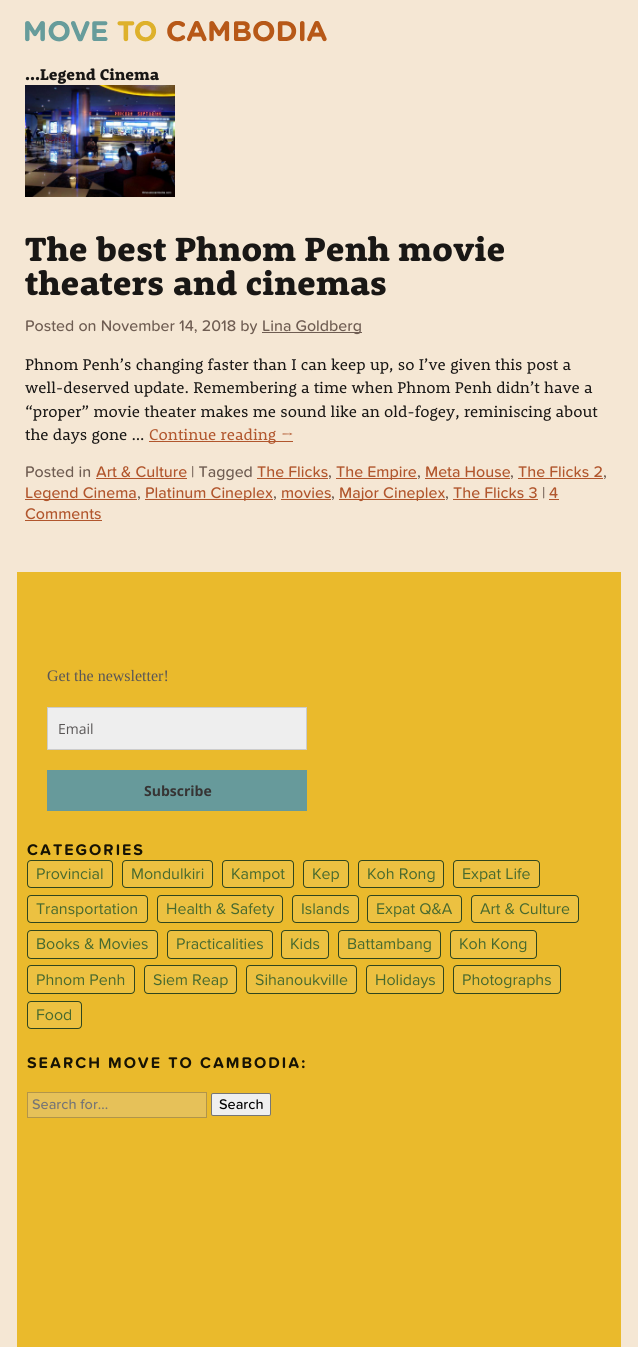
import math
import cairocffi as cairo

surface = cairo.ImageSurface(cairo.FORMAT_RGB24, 638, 1347)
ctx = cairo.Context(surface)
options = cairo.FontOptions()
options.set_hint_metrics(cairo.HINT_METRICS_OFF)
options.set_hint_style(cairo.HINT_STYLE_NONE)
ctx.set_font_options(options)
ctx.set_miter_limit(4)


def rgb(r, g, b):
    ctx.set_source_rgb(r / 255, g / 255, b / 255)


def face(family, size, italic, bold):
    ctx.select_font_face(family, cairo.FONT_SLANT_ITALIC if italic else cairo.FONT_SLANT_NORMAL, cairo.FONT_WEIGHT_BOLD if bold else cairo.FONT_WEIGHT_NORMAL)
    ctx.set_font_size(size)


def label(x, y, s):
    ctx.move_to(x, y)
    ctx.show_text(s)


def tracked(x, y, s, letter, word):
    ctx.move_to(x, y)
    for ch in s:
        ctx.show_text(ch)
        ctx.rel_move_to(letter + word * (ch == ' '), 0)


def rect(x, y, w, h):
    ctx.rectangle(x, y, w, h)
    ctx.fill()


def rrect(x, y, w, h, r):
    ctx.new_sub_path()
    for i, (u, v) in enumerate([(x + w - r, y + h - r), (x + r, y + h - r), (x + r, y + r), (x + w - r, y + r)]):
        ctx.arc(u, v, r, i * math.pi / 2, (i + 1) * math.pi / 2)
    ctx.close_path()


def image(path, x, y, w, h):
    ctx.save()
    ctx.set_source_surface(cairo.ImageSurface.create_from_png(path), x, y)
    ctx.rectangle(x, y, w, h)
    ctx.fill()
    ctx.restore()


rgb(245, 231, 212)
ctx.paint()
image('image0.png', 25, 21, 302, 21)
face('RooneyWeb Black', 16, 0, 0)
rgb(25, 23, 21)
label(25, 80, '...Legend Cinema')
image('image1.png', 25, 85, 150, 112)
face('RooneyWeb Black', 34.4, 0, 0)
label(25, 261, 'The best Phnom Penh movie')
label(25, 295, 'theaters and cinemas')
face('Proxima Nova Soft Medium', 16, 0, 0)
rgb(111, 93, 82)
label(25, 331, 'Posted on November 14, 2018 by')
rect(262, 332, 100, 1)
label(262, 331, 'Lina Goldberg')
face('RooneyWeb', 16, 0, 0)
rgb(25, 23, 21)
label(25, 370, 'Phnom Penh’s changing faster than I can keep up, so I’ve given this post a')
label(25, 393, 'well-deserved update. Remembering a time when Phnom Penh didn’t have a')
label(25, 417, '“proper” movie theater makes me sound like an old-fogey, reminiscing about')
label(25, 440, 'the days gone …')
rgb(177, 86, 45)
rect(149, 441, 144, 1)
label(149, 440, 'Continue reading')
face('Caladea', 16, 0, 0)
label(281, 440, '→')
face('Proxima Nova Soft Medium', 16, 0, 0)
rgb(111, 93, 82)
label(25, 477, 'Posted in')
rgb(177, 86, 45)
label(96, 477, 'Art & Culture')
rect(96, 478, 91, 1)
rgb(111, 93, 82)
label(191, 477, '| Tagged')
rgb(177, 86, 45)
label(257, 477, 'The Flicks')
rect(257, 478, 71, 1)
rgb(111, 93, 82)
label(328, 477, ',')
rgb(177, 86, 45)
rect(336, 478, 81, 1)
label(336, 477, 'The Empire')
rgb(111, 93, 82)
label(417, 477, ',')
rgb(177, 86, 45)
label(425, 477, 'Meta House')
rect(425, 478, 85, 1)
rgb(111, 93, 82)
label(510, 477, ',')
rgb(177, 86, 45)
label(518, 477, 'The Flicks 2')
rect(518, 478, 85, 1)
rgb(111, 93, 82)
label(603, 477, ',')
rgb(177, 86, 45)
rect(25, 499, 112, 1)
label(25, 498, 'Legend Cinema')
rgb(111, 93, 82)
label(137, 498, ',')
rgb(177, 86, 45)
rect(145, 499, 128, 1)
label(145, 498, 'Platinum Cineplex')
rgb(111, 93, 82)
label(273, 498, ',')
rgb(177, 86, 45)
label(281, 498, 'movies')
rect(281, 499, 50, 1)
rgb(111, 93, 82)
label(331, 498, ',')
rgb(177, 86, 45)
rect(339, 499, 106, 1)
label(339, 498, 'Major Cineplex')
rgb(111, 93, 82)
label(445, 498, ',')
rgb(177, 86, 45)
label(453, 498, 'The Flicks 3')
rect(453, 499, 85, 1)
rgb(111, 93, 82)
label(542, 498, '|')
rgb(177, 86, 45)
label(549, 498, '4')
rect(549, 499, 10, 1)
label(25, 519, 'Comments')
rect(25, 520, 77, 1)
rgb(234, 186, 44)
rect(17, 572, 604, 775)
face('Liberation Serif', 16, 0, 0)
rgb(89, 86, 86)
label(47, 681, 'Get the newsletter!')
rgb(238, 238, 238)
ctx.rectangle(47.5, 707.5, 259, 42)
ctx.fill_preserve()
rgb(204, 204, 204)
ctx.set_line_width(1)
ctx.stroke()
face('Open Sans', 14, 0, 0)
rgb(89, 86, 86)
label(58, 734, 'Email')
rgb(103, 154, 155)
rect(47, 770, 260, 41)
face('Open Sans', 14, 0, 1)
rgb(54, 52, 52)
label(144, 796, 'Subscribe')
face('Proxima Nova Soft', 16, 0, 1)
rgb(23, 19, 4)
tracked(27, 855, 'CATEGORIES', 2, 0)
rgb(236, 193, 65)
rrect(27.5, 860.5, 85, 27, 3.5)
ctx.fill_preserve()
rgb(47, 70, 30)
ctx.stroke()
face('Proxima Nova', 16, 0, 0)
rgb(71, 105, 46)
label(36, 879, 'Provincial')
rgb(236, 193, 65)
rrect(122.5, 860.5, 90, 27, 3.5)
ctx.fill_preserve()
rgb(47, 70, 30)
ctx.stroke()
rgb(71, 105, 46)
label(131, 879, 'Mondulkiri')
rgb(236, 193, 65)
rrect(222.5, 860.5, 71, 27, 3.5)
ctx.fill_preserve()
rgb(47, 70, 30)
ctx.stroke()
rgb(71, 105, 46)
label(231, 879, 'Kampot')
rgb(236, 193, 65)
rrect(303.5, 860.5, 45, 27, 3.5)
ctx.fill_preserve()
rgb(47, 70, 30)
ctx.stroke()
rgb(71, 105, 46)
label(312, 879, 'Kep')
rgb(236, 193, 65)
rrect(358.5, 860.5, 85, 27, 3.5)
ctx.fill_preserve()
rgb(47, 70, 30)
ctx.stroke()
rgb(71, 105, 46)
label(367, 879, 'Koh Rong')
rgb(236, 193, 65)
rrect(453.5, 860.5, 86, 27, 3.5)
ctx.fill_preserve()
rgb(47, 70, 30)
ctx.stroke()
rgb(71, 105, 46)
label(462, 879, 'Expat Life')
rgb(236, 193, 65)
rrect(27.5, 895.5, 120, 27, 3.5)
ctx.fill_preserve()
rgb(47, 70, 30)
ctx.stroke()
rgb(71, 105, 46)
label(36, 914, 'Transportation')
rgb(236, 193, 65)
rrect(157.5, 895.5, 125, 27, 3.5)
ctx.fill_preserve()
rgb(47, 70, 30)
ctx.stroke()
rgb(71, 105, 46)
label(166, 914, 'Health & Safety')
rgb(236, 193, 65)
rrect(292.5, 895.5, 66, 27, 3.5)
ctx.fill_preserve()
rgb(47, 70, 30)
ctx.stroke()
rgb(71, 105, 46)
label(301, 914, 'Islands')
rgb(236, 193, 65)
rrect(367.5, 895.5, 94, 27, 3.5)
ctx.fill_preserve()
rgb(47, 70, 30)
ctx.stroke()
rgb(71, 105, 46)
label(376, 914, 'Expat Q&A')
rgb(236, 193, 65)
rrect(471.5, 895.5, 107, 27, 3.5)
ctx.fill_preserve()
rgb(47, 70, 30)
ctx.stroke()
rgb(71, 105, 46)
label(480, 914, 'Art & Culture')
rgb(236, 193, 65)
rrect(27.5, 930.5, 130, 28, 3.5)
ctx.fill_preserve()
rgb(47, 70, 30)
ctx.stroke()
rgb(71, 105, 46)
label(36, 949, 'Books & Movies')
rgb(236, 193, 65)
rrect(167.5, 930.5, 105, 28, 3.5)
ctx.fill_preserve()
rgb(47, 70, 30)
ctx.stroke()
rgb(71, 105, 46)
label(176, 949, 'Practicalities')
rgb(236, 193, 65)
rrect(281.5, 930.5, 47, 28, 3.5)
ctx.fill_preserve()
rgb(47, 70, 30)
ctx.stroke()
rgb(71, 105, 46)
label(290, 949, 'Kids')
rgb(236, 193, 65)
rrect(338.5, 930.5, 102, 28, 3.5)
ctx.fill_preserve()
rgb(47, 70, 30)
ctx.stroke()
rgb(71, 105, 46)
label(347, 949, 'Battambang')
rgb(236, 193, 65)
rrect(450.5, 930.5, 86, 28, 3.5)
ctx.fill_preserve()
rgb(47, 70, 30)
ctx.stroke()
rgb(71, 105, 46)
label(459, 949, 'Koh Kong')
rgb(236, 193, 65)
rrect(27.5, 965.5, 107, 28, 3.5)
ctx.fill_preserve()
rgb(47, 70, 30)
ctx.stroke()
rgb(71, 105, 46)
label(36, 985, 'Phnom Penh')
rgb(236, 193, 65)
rrect(144.5, 965.5, 92, 28, 3.5)
ctx.fill_preserve()
rgb(47, 70, 30)
ctx.stroke()
rgb(71, 105, 46)
label(153, 985, 'Siem Reap')
rgb(236, 193, 65)
rrect(246.5, 965.5, 110, 28, 3.5)
ctx.fill_preserve()
rgb(47, 70, 30)
ctx.stroke()
rgb(71, 105, 46)
label(255, 985, 'Sihanoukville')
rgb(236, 193, 65)
rrect(366.5, 965.5, 77, 28, 3.5)
ctx.fill_preserve()
rgb(47, 70, 30)
ctx.stroke()
rgb(71, 105, 46)
label(375, 985, 'Holidays')
rgb(236, 193, 65)
rrect(453.5, 965.5, 107, 28, 3.5)
ctx.fill_preserve()
rgb(47, 70, 30)
ctx.stroke()
rgb(71, 105, 46)
label(462, 985, 'Photographs')
rgb(236, 193, 65)
rrect(27.5, 1001.5, 54, 27, 3.5)
ctx.fill_preserve()
rgb(47, 70, 30)
ctx.stroke()
rgb(71, 105, 46)
label(36, 1020, 'Food')
face('Proxima Nova Soft', 16, 0, 1)
rgb(23, 19, 4)
tracked(27, 1068, 'SEARCH MOVE TO CAMBODIA:', 2, 0)
rgb(230, 193, 89)
ctx.rectangle(27.5, 1092.5, 179, 25)
ctx.fill_preserve()
rgb(178, 149, 74)
ctx.stroke()
face('Proxima Nova Soft Medium', 14.5, 0, 0)
rgb(117, 117, 117)
label(32, 1109, 'Search for...')
rgb(239, 239, 239)
rrect(211.5, 1093.5, 59, 22, 1.5)
ctx.fill_preserve()
rgb(118, 118, 118)
ctx.stroke()
rgb(0, 0, 0)
label(219, 1109, 'Search')
surface.write_to_png('render.png')
